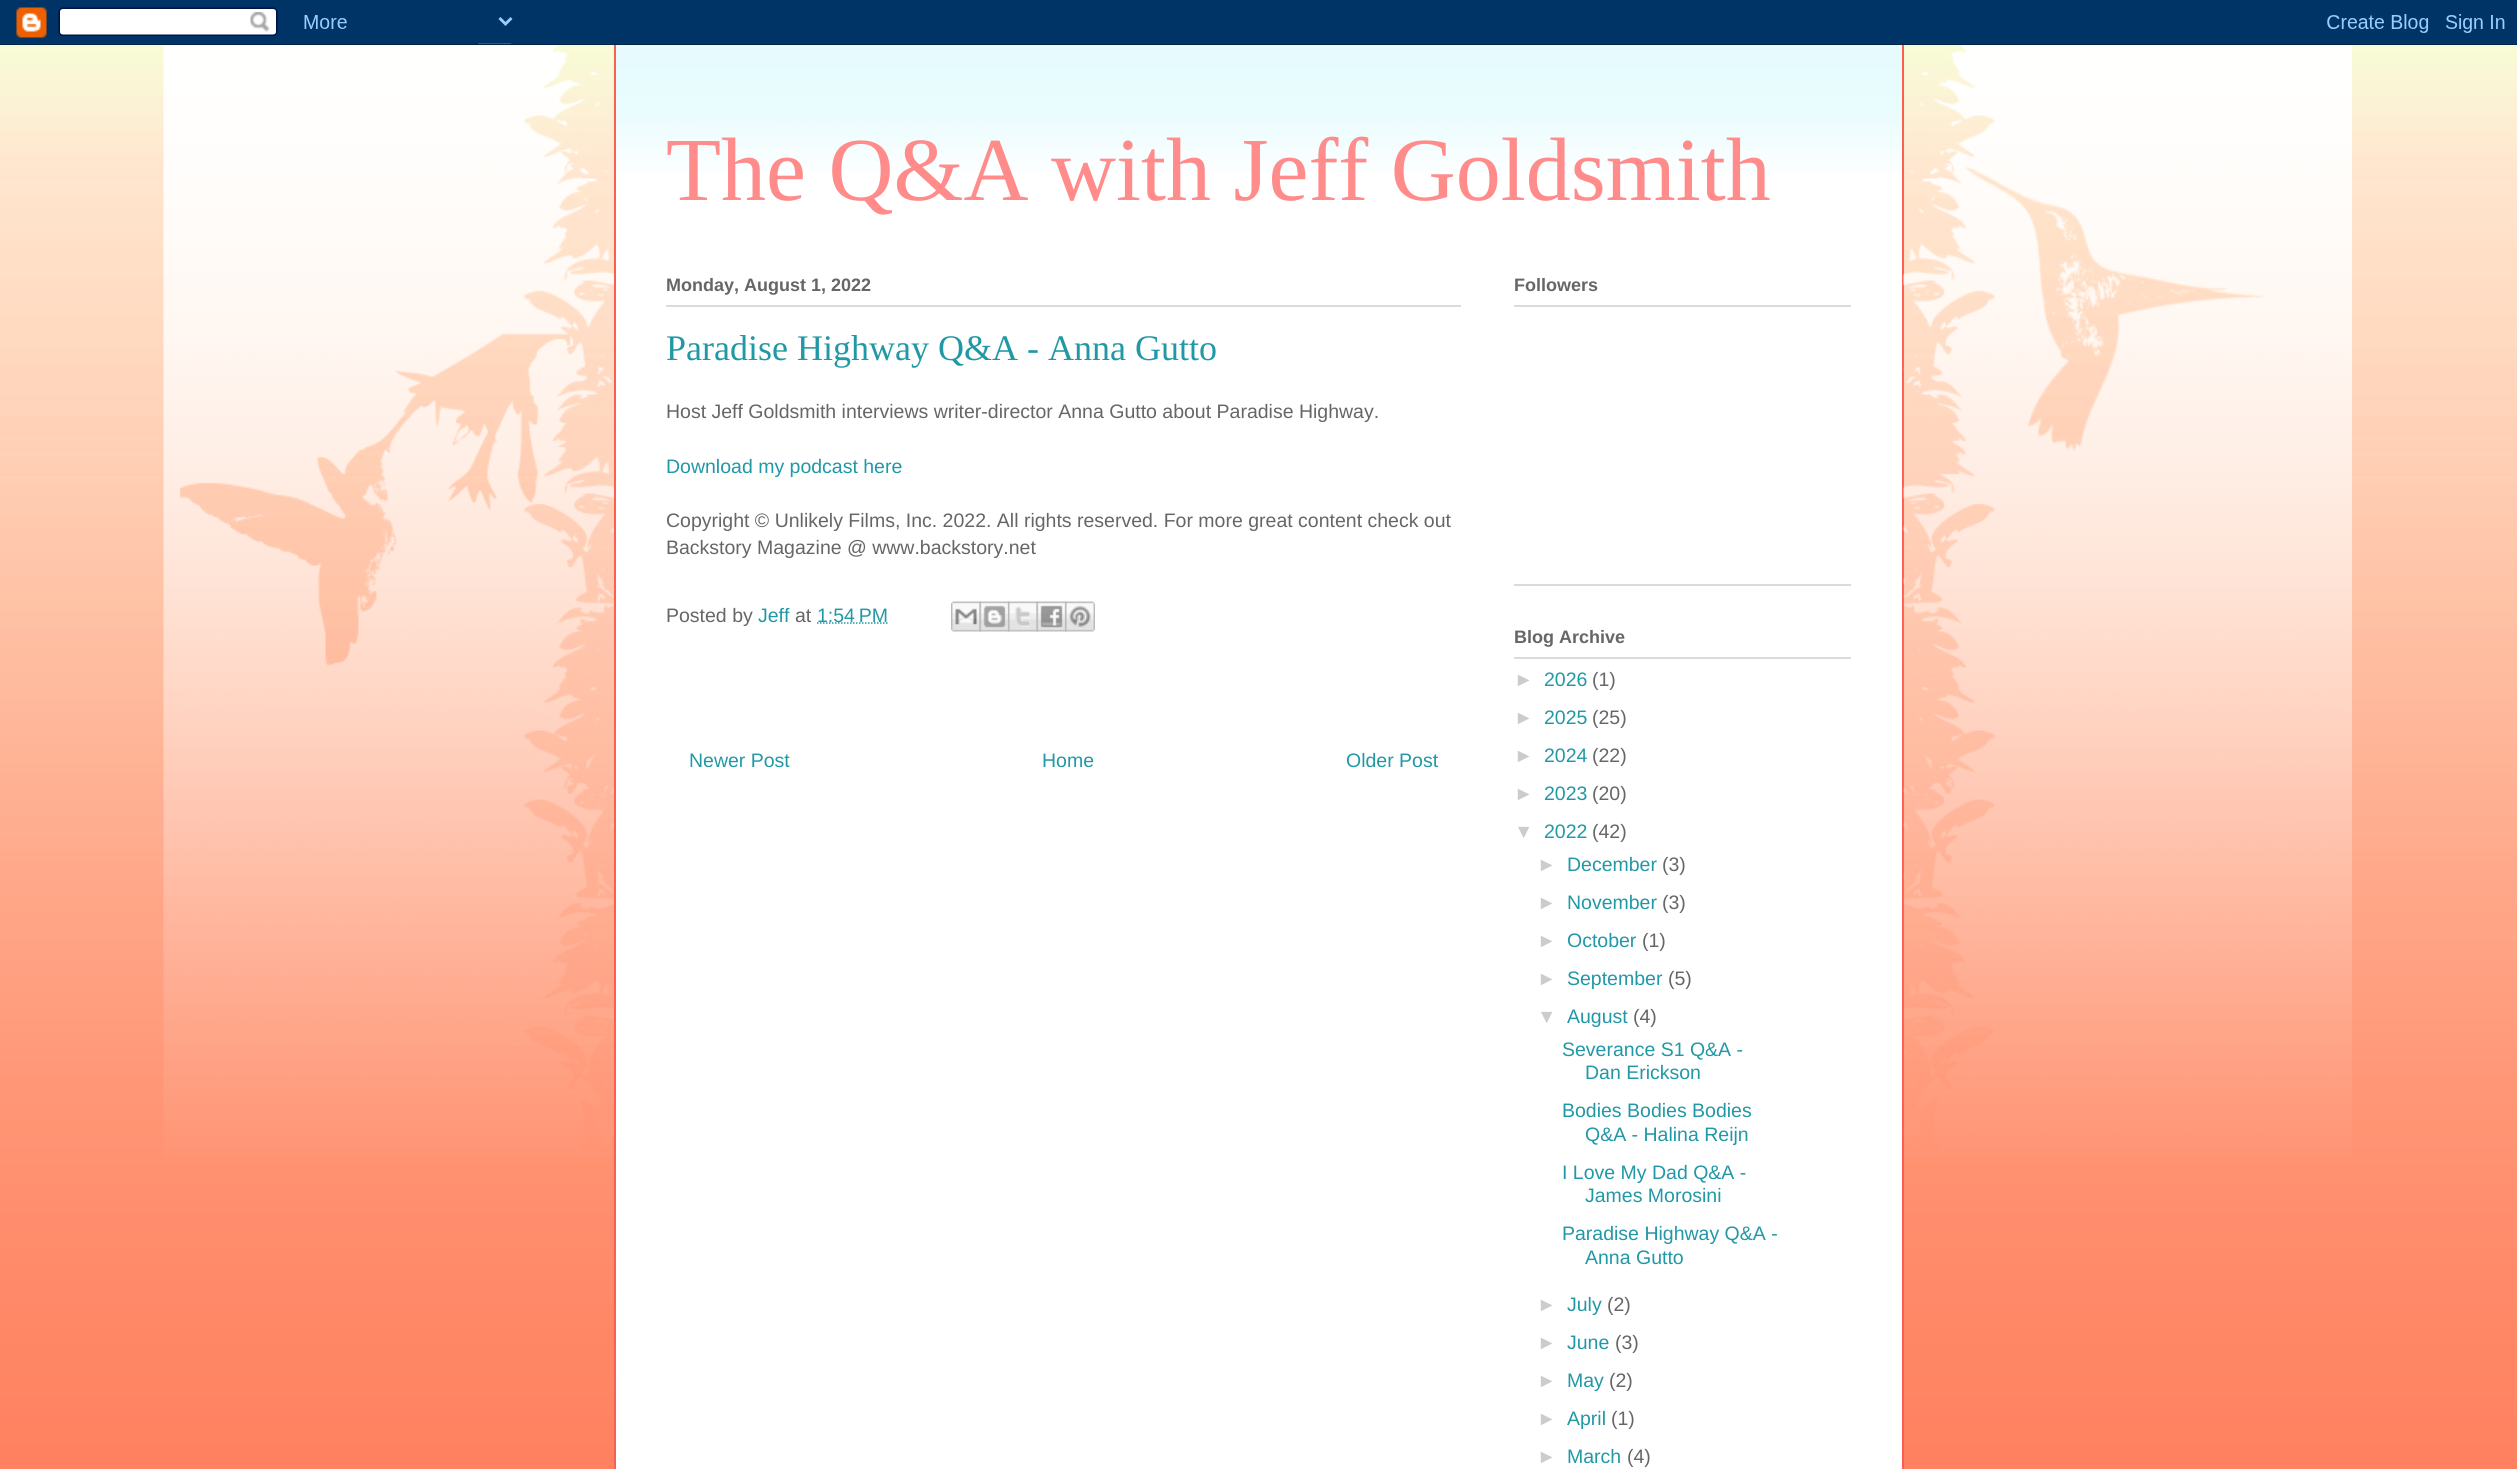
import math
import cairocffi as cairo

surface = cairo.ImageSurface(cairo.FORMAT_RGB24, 2517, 1469)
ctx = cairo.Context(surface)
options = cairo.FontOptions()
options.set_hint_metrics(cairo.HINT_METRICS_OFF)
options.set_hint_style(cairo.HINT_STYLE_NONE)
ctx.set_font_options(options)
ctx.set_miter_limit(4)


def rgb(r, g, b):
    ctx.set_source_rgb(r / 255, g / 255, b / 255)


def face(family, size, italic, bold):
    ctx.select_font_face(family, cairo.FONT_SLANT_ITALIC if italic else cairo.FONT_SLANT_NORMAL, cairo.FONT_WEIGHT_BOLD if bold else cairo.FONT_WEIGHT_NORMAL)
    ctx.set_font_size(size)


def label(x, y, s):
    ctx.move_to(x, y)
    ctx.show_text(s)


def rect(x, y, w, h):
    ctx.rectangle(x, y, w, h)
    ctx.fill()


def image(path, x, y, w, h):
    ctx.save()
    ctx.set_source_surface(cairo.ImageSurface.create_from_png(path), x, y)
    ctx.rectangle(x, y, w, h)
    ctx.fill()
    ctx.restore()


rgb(255, 255, 255)
ctx.paint()
image('image0.png', 0, 43, 2517, 1426)
image('image1.png', 0, 0, 2517, 45)
image('image2.png', 163, 45, 451, 1112)
rgb(255, 255, 255)
rect(616, 45, 1286, 1424)
image('image3.png', 613, 45, 1289, 126)
rgb(251, 94, 83)
rect(1902, 45, 2, 1424)
rect(614, 45, 2, 1424)
image('image4.png', 1903, 45, 449, 1112)
face('Liberation Serif', 90, 0, 0)
rgb(255, 139, 139)
label(666, 200, 'The Q&A with Jeff Goldsmith')
rgb(219, 219, 219)
rect(666, 305, 795, 2)
face('Liberation Sans', 18, 0, 1)
rgb(102, 102, 102)
label(666, 291, 'Monday, August 1, 2022')
face('Liberation Serif', 36, 0, 0)
rgb(33, 152, 166)
label(666, 360, 'Paradise Highway Q&A - Anna Gutto')
face('Liberation Sans', 19.5, 0, 0)
rgb(102, 102, 102)
label(666, 418, 'Host Jeff Goldsmith interviews writer-director Anna Gutto about Paradise Highway.')
rgb(33, 152, 166)
label(666, 473, 'Download my podcast here')
rgb(102, 102, 102)
label(666, 527, 'Copyright © Unlikely Films, Inc. 2022. All rights reserved. For more great content check out')
label(666, 554, 'Backstory Magazine @ www.backstory.net')
label(666, 622, 'Posted by')
rgb(33, 152, 166)
label(758, 622, 'Jeff')
rgb(102, 102, 102)
label(795, 622, 'at')
ctx.new_path()
ctx.move_to(817, 623)
ctx.line_to(888, 623)
rgb(33, 152, 166)
ctx.set_line_width(1.5)
ctx.set_dash([1.5, 1.5])
ctx.stroke()
label(817, 622, '1:54 PM')
image('image5.png', 951, 601, 30, 31)
image('image6.png', 979, 601, 31, 31)
image('image7.png', 1008, 601, 30, 31)
image('image8.png', 1036, 601, 31, 31)
image('image9.png', 1065, 601, 30, 31)
label(689, 767, 'Newer Post')
label(1042, 767, 'Home')
label(1346, 767, 'Older Post')
rgb(219, 219, 219)
rect(1514, 584, 337, 2)
rect(1514, 305, 337, 2)
face('Liberation Sans', 18, 0, 1)
rgb(102, 102, 102)
label(1514, 291, 'Followers')
rgb(219, 219, 219)
rect(1514, 657, 337, 2)
rgb(102, 102, 102)
label(1514, 643, 'Blog Archive')
face('Liberation Sans', 19.5, 0, 0)
rgb(204, 204, 204)
label(1514, 686, '►')
rgb(33, 152, 166)
label(1544, 686, '2026')
rgb(102, 102, 102)
label(1592, 686, '(1)')
rgb(204, 204, 204)
label(1514, 724, '►')
rgb(33, 152, 166)
label(1544, 724, '2025')
rgb(102, 102, 102)
label(1592, 724, '(25)')
rgb(204, 204, 204)
label(1514, 762, '►')
rgb(33, 152, 166)
label(1544, 762, '2024')
rgb(102, 102, 102)
label(1592, 762, '(22)')
rgb(204, 204, 204)
label(1514, 800, '►')
rgb(33, 152, 166)
label(1544, 800, '2023')
rgb(102, 102, 102)
label(1592, 800, '(20)')
rgb(204, 204, 204)
label(1514, 838, '▼')
rgb(33, 152, 166)
label(1544, 838, '2022')
rgb(102, 102, 102)
label(1592, 838, '(42)')
rgb(204, 204, 204)
label(1537, 871, '►')
rgb(33, 152, 166)
label(1567, 871, 'December')
rgb(102, 102, 102)
label(1662, 871, '(3)')
rgb(204, 204, 204)
label(1537, 909, '►')
rgb(33, 152, 166)
label(1567, 909, 'November')
rgb(102, 102, 102)
label(1662, 909, '(3)')
rgb(204, 204, 204)
label(1537, 947, '►')
rgb(33, 152, 166)
label(1567, 947, 'October')
rgb(102, 102, 102)
label(1642, 947, '(1)')
rgb(204, 204, 204)
label(1537, 985, '►')
rgb(33, 152, 166)
label(1567, 985, 'September')
rgb(102, 102, 102)
label(1668, 985, '(5)')
rgb(204, 204, 204)
label(1537, 1023, '▼')
rgb(33, 152, 166)
label(1567, 1023, 'August')
rgb(102, 102, 102)
label(1633, 1023, '(4)')
rgb(33, 152, 166)
label(1562, 1056, 'Severance S1 Q&A -')
label(1585, 1079, 'Dan Erickson')
label(1562, 1117, 'Bodies Bodies Bodies')
label(1585, 1141, 'Q&A - Halina Reijn')
label(1562, 1179, 'I Love My Dad Q&A -')
label(1585, 1202, 'James Morosini')
label(1562, 1240, 'Paradise Highway Q&A -')
label(1585, 1264, 'Anna Gutto')
rgb(204, 204, 204)
label(1537, 1311, '►')
rgb(33, 152, 166)
label(1567, 1311, 'July')
rgb(102, 102, 102)
label(1607, 1311, '(2)')
rgb(204, 204, 204)
label(1537, 1349, '►')
rgb(33, 152, 166)
label(1567, 1349, 'June')
rgb(102, 102, 102)
label(1615, 1349, '(3)')
rgb(204, 204, 204)
label(1537, 1387, '►')
rgb(33, 152, 166)
label(1567, 1387, 'May')
rgb(102, 102, 102)
label(1609, 1387, '(2)')
rgb(204, 204, 204)
label(1537, 1425, '►')
rgb(33, 152, 166)
label(1567, 1425, 'April')
rgb(102, 102, 102)
label(1611, 1425, '(1)')
rgb(204, 204, 204)
label(1537, 1463, '►')
rgb(33, 152, 166)
label(1567, 1463, 'March')
rgb(102, 102, 102)
label(1627, 1463, '(4)')
surface.write_to_png('render.png')
